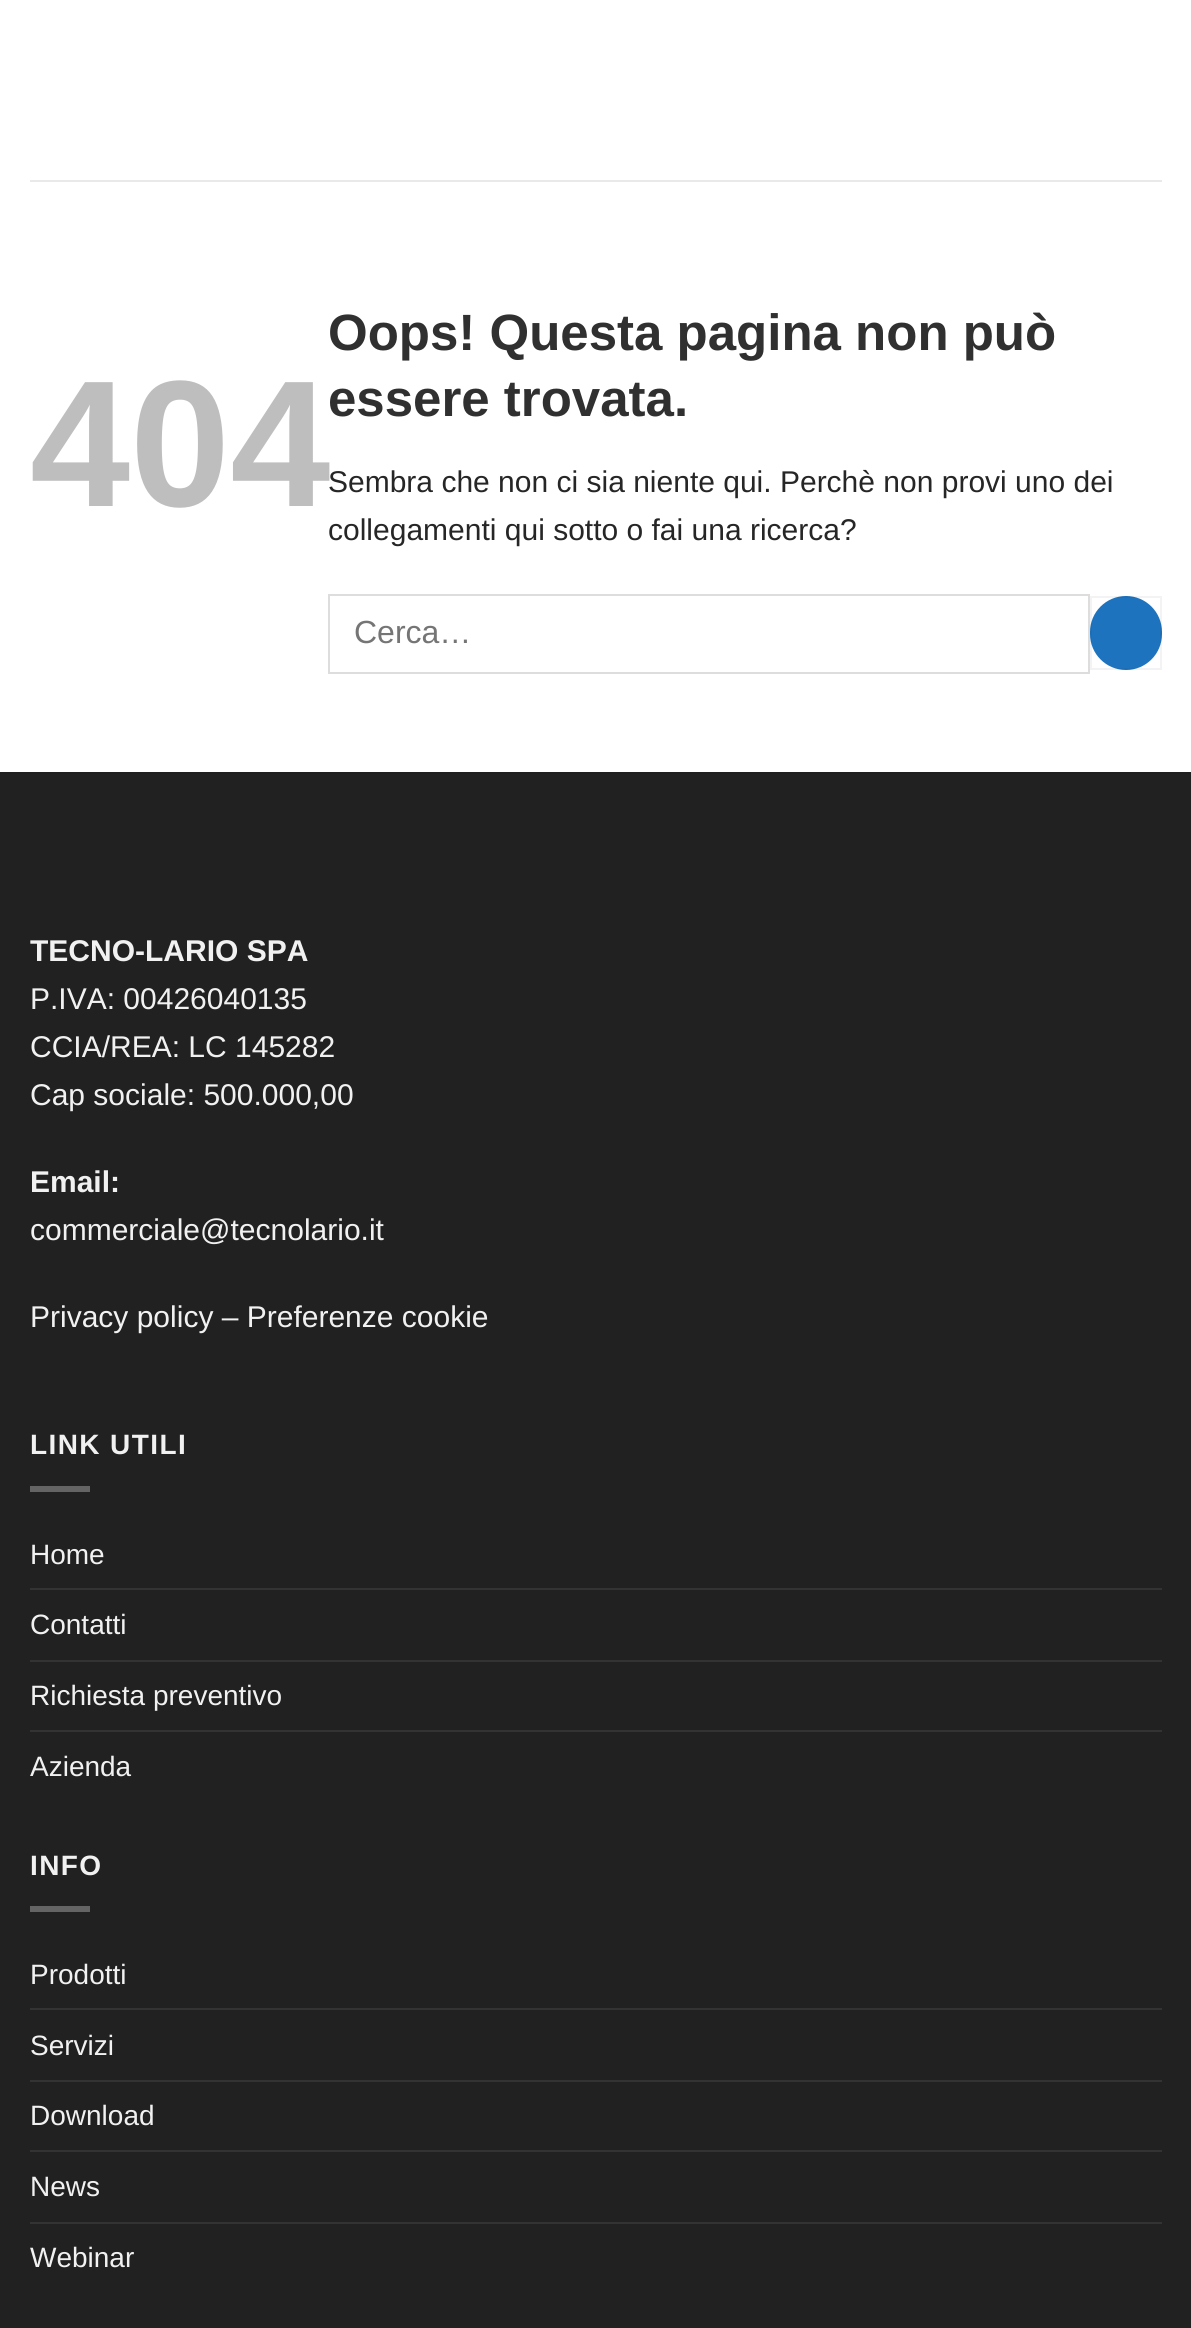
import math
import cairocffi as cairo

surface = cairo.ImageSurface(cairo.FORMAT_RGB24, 1191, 2328)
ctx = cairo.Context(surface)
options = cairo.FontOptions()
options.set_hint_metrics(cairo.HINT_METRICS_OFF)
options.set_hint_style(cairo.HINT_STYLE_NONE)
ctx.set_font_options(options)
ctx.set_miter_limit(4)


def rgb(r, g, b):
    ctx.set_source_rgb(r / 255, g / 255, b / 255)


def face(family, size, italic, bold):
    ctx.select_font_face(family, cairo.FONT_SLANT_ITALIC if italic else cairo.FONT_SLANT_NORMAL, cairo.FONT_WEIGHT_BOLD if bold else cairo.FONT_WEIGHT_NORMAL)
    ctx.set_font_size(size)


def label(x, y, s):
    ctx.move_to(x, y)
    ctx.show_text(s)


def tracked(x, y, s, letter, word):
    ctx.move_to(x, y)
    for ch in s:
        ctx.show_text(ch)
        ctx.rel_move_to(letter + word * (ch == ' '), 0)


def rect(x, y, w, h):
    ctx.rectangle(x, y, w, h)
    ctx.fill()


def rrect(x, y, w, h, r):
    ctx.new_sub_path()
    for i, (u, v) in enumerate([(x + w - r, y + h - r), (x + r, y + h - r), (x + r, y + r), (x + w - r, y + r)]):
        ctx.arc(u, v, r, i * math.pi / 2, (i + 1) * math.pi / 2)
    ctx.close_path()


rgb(255, 255, 255)
ctx.paint()
rgb(233, 233, 233)
rect(30, 180, 1132, 2)
face('Liberation Sans', 180, 0, 1)
rgb(190, 190, 190)
label(30, 506, '404')
face('Liberation Sans', 51, 0, 1)
rgb(48, 48, 48)
label(328, 350, 'Oops! Questa pagina non può')
label(328, 416, 'essere trovata.')
face('Liberation Sans', 30, 0, 0)
rgb(38, 38, 38)
label(328, 492, 'Sembra che non ci sia niente qui. Perchè non provi uno dei')
label(328, 540, 'collegamenti qui sotto o fai una ricerca?')
ctx.rectangle(329, 595, 760, 78)
rgb(221, 221, 221)
ctx.stroke()
face('Liberation Sans', 32, 0, 0)
rgb(117, 117, 117)
label(354, 643, 'Cerca…')
rgb(30, 115, 190)
rrect(1090, 596, 72, 74, 36)
ctx.fill()
ctx.rectangle(1091, 597, 70, 72)
ctx.set_source_rgba(0, 0, 0, 0.05)
ctx.stroke()
rgb(33, 33, 33)
rect(0, 774, 1191, 1554)
rgb(31, 31, 31)
rect(0, 772, 1191, 2)
face('Liberation Sans', 30, 0, 1)
rgb(241, 241, 241)
label(30, 961, 'TECNO-LARIO SPA')
face('Liberation Sans', 30, 0, 0)
label(30, 1009, 'P.IVA: 00426040135')
label(30, 1057, 'CCIA/REA: LC 145282')
label(30, 1105, 'Cap sociale: 500.000,00')
face('Liberation Sans', 30, 0, 1)
label(30, 1192, 'Email:')
face('Liberation Sans', 30, 0, 0)
label(30, 1240, 'commerciale@tecnolario.it')
label(30, 1327, 'Privacy policy – Preferenze cookie')
face('Liberation Sans', 28, 0, 1)
tracked(30, 1454, 'LINK UTILI', 1.4, 0)
rgb(100, 100, 100)
rect(30, 1486, 60, 6)
face('Liberation Sans', 28, 0, 0)
rgb(241, 241, 241)
label(30, 1564, 'Home')
rgb(51, 51, 51)
rect(30, 1588, 1132, 2)
rgb(241, 241, 241)
label(30, 1634, 'Contatti')
rgb(51, 51, 51)
rect(30, 1660, 1132, 2)
rgb(241, 241, 241)
label(30, 1705, 'Richiesta preventivo')
rgb(51, 51, 51)
rect(30, 1730, 1132, 2)
rgb(241, 241, 241)
label(30, 1776, 'Azienda')
face('Liberation Sans', 28, 0, 1)
tracked(30, 1875, 'INFO', 1.4, 0)
rgb(100, 100, 100)
rect(30, 1906, 60, 6)
face('Liberation Sans', 28, 0, 0)
rgb(241, 241, 241)
label(30, 1984, 'Prodotti')
rgb(51, 51, 51)
rect(30, 2008, 1132, 2)
rgb(241, 241, 241)
label(30, 2055, 'Servizi')
rgb(51, 51, 51)
rect(30, 2080, 1132, 2)
rgb(241, 241, 241)
label(30, 2125, 'Download')
rgb(51, 51, 51)
rect(30, 2150, 1132, 2)
rgb(241, 241, 241)
label(30, 2196, 'News')
rgb(51, 51, 51)
rect(30, 2222, 1132, 2)
rgb(241, 241, 241)
label(30, 2267, 'Webinar')
surface.write_to_png('render.png')
